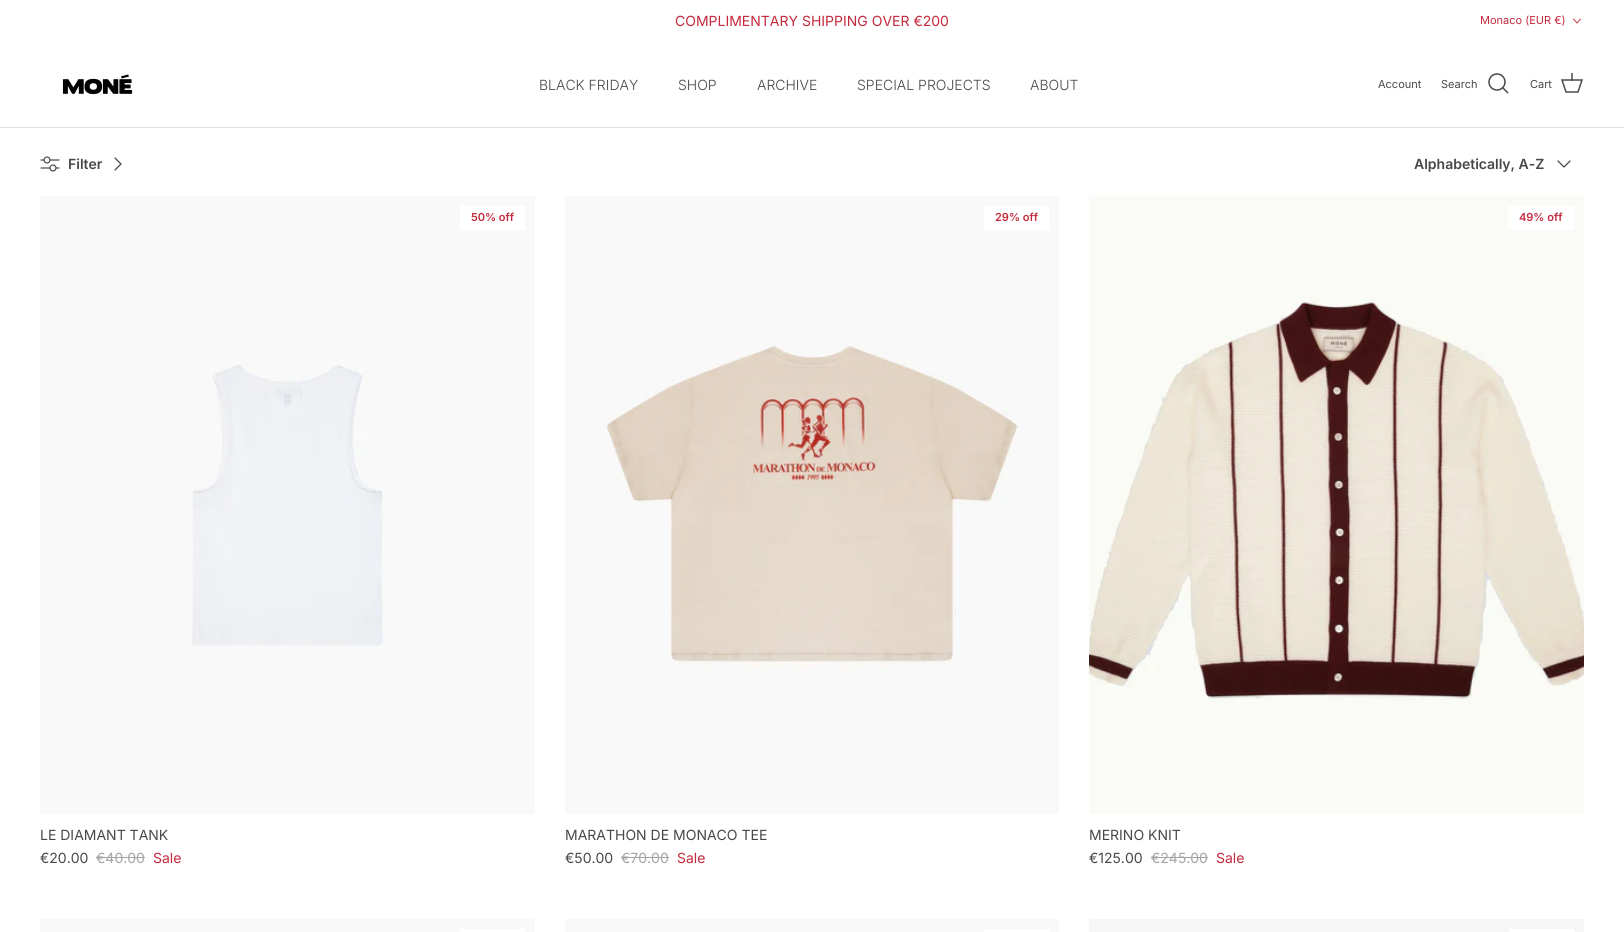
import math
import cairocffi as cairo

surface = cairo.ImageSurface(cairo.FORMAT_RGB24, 1624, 932)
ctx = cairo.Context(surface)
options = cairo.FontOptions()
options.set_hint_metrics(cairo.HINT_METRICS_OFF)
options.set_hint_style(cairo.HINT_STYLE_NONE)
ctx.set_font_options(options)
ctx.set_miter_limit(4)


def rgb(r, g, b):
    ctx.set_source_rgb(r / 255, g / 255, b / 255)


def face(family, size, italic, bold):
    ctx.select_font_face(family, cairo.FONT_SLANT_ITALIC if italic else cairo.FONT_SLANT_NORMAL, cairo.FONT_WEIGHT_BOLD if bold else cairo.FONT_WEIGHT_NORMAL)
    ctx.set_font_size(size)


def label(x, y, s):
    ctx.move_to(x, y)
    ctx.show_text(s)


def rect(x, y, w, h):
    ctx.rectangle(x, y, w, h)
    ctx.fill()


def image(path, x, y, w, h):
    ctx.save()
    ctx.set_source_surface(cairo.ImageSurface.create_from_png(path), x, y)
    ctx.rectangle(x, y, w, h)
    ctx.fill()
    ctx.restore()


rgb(255, 255, 255)
ctx.paint()
face('Inter', 14, 0, 0)
rgb(196, 41, 61)
label(675, 26, 'COMPLIMENTARY SHIPPING OVER €200')
face('Inter', 11, 0, 0)
label(1480, 24, 'Monaco (EUR €)')
ctx.new_path()
ctx.move_to(1573.5, 19)
ctx.line_to(1577, 23)
ctx.line_to(1580.5, 19)
ctx.set_line_width(0.9)
ctx.set_line_cap(cairo.LINE_CAP_ROUND)
ctx.set_line_join(cairo.LINE_JOIN_ROUND)
ctx.stroke()
rgb(226, 226, 226)
rect(0, 127, 1624, 1)
image('image0.png', 62, 74, 71, 21)
face('Inter Light', 14, 0, 0)
rgb(72, 72, 70)
label(539, 90, 'BLACK FRIDAY')
label(678, 90, 'SHOP')
label(757, 90, 'ARCHIVE')
label(857, 90, 'SPECIAL PROJECTS')
label(1030, 90, 'ABOUT')
face('Inter', 11, 0, 0)
label(1378, 88, 'Account')
label(1441, 88, 'Search')
ctx.new_path()
ctx.arc(1497, 82, 8, 0, 2 * math.pi)
ctx.set_line_width(1.5)
ctx.set_line_cap(cairo.LINE_CAP_BUTT)
ctx.set_line_join(cairo.LINE_JOIN_MITER)
ctx.stroke()
ctx.new_path()
ctx.move_to(1503, 88)
ctx.line_to(1507.5, 92.5)
ctx.set_line_cap(cairo.LINE_CAP_SQUARE)
ctx.stroke()
label(1530, 88, 'Cart')
ctx.new_path()
ctx.move_to(1562, 80)
ctx.line_to(1582, 80)
ctx.line_to(1578, 92)
ctx.line_to(1566, 92)
ctx.close_path()
ctx.set_line_cap(cairo.LINE_CAP_BUTT)
ctx.stroke()
ctx.set_source_rgba(0.282, 0.282, 0.275, 0.75)
rect(1571, 73, 2, 8)
image('image1.png', 40, 156, 20, 16)
face('Inter SemiBold', 14, 0, 0)
rgb(72, 72, 70)
label(68, 169, 'Filter')
ctx.new_path()
ctx.move_to(115, 170)
ctx.line_to(121, 164)
ctx.line_to(115, 158)
ctx.set_line_width(1.3)
ctx.set_line_cap(cairo.LINE_CAP_ROUND)
ctx.set_line_join(cairo.LINE_JOIN_ROUND)
ctx.stroke()
label(1414, 169, 'Alphabetically, A-Z')
ctx.new_path()
ctx.move_to(1558, 161)
ctx.line_to(1564, 167)
ctx.line_to(1570, 161)
ctx.stroke()
image('image2.png', 40, 196, 495, 618)
rgb(255, 255, 255)
rect(460, 206, 65, 24)
face('Inter SemiBold', 11, 0, 0)
rgb(196, 41, 61)
label(471, 221, '50% off')
face('Inter', 14, 0, 0)
rgb(72, 72, 70)
label(40, 840, 'LE DIAMANT TANK')
label(40, 863, '€20.00')
rgb(164, 164, 163)
label(96, 863, '€40.00')
rect(96, 857, 49, 1)
rgb(196, 41, 61)
label(153, 863, 'Sale')
image('image3.png', 565, 196, 494, 618)
rgb(255, 255, 255)
rect(984, 206, 65, 24)
face('Inter SemiBold', 11, 0, 0)
rgb(196, 41, 61)
label(995, 221, '29% off')
face('Inter', 14, 0, 0)
rgb(72, 72, 70)
label(565, 840, 'MARATHON DE MONACO TEE')
label(565, 863, '€50.00')
rgb(164, 164, 163)
label(621, 863, '€70.00')
rect(621, 857, 48, 1)
rgb(196, 41, 61)
label(677, 863, 'Sale')
image('image4.png', 1089, 196, 495, 618)
rgb(255, 255, 255)
rect(1508, 206, 66, 24)
face('Inter SemiBold', 11, 0, 0)
rgb(196, 41, 61)
label(1519, 221, '49% off')
face('Inter', 14, 0, 0)
rgb(72, 72, 70)
label(1089, 840, 'MERINO KNIT')
label(1089, 863, '€125.00')
rgb(164, 164, 163)
label(1151, 863, '€245.00')
rect(1151, 857, 57, 1)
rgb(196, 41, 61)
label(1216, 863, 'Sale')
rgb(249, 249, 249)
rect(40, 919, 495, 13)
rgb(255, 255, 255)
rect(460, 929, 65, 3)
rgb(249, 249, 249)
rect(565, 919, 494, 13)
rgb(255, 255, 255)
rect(984, 929, 65, 3)
rgb(246, 246, 246)
rect(1089, 919, 495, 13)
rgb(255, 255, 255)
rect(1509, 929, 65, 3)
surface.write_to_png('render.png')
